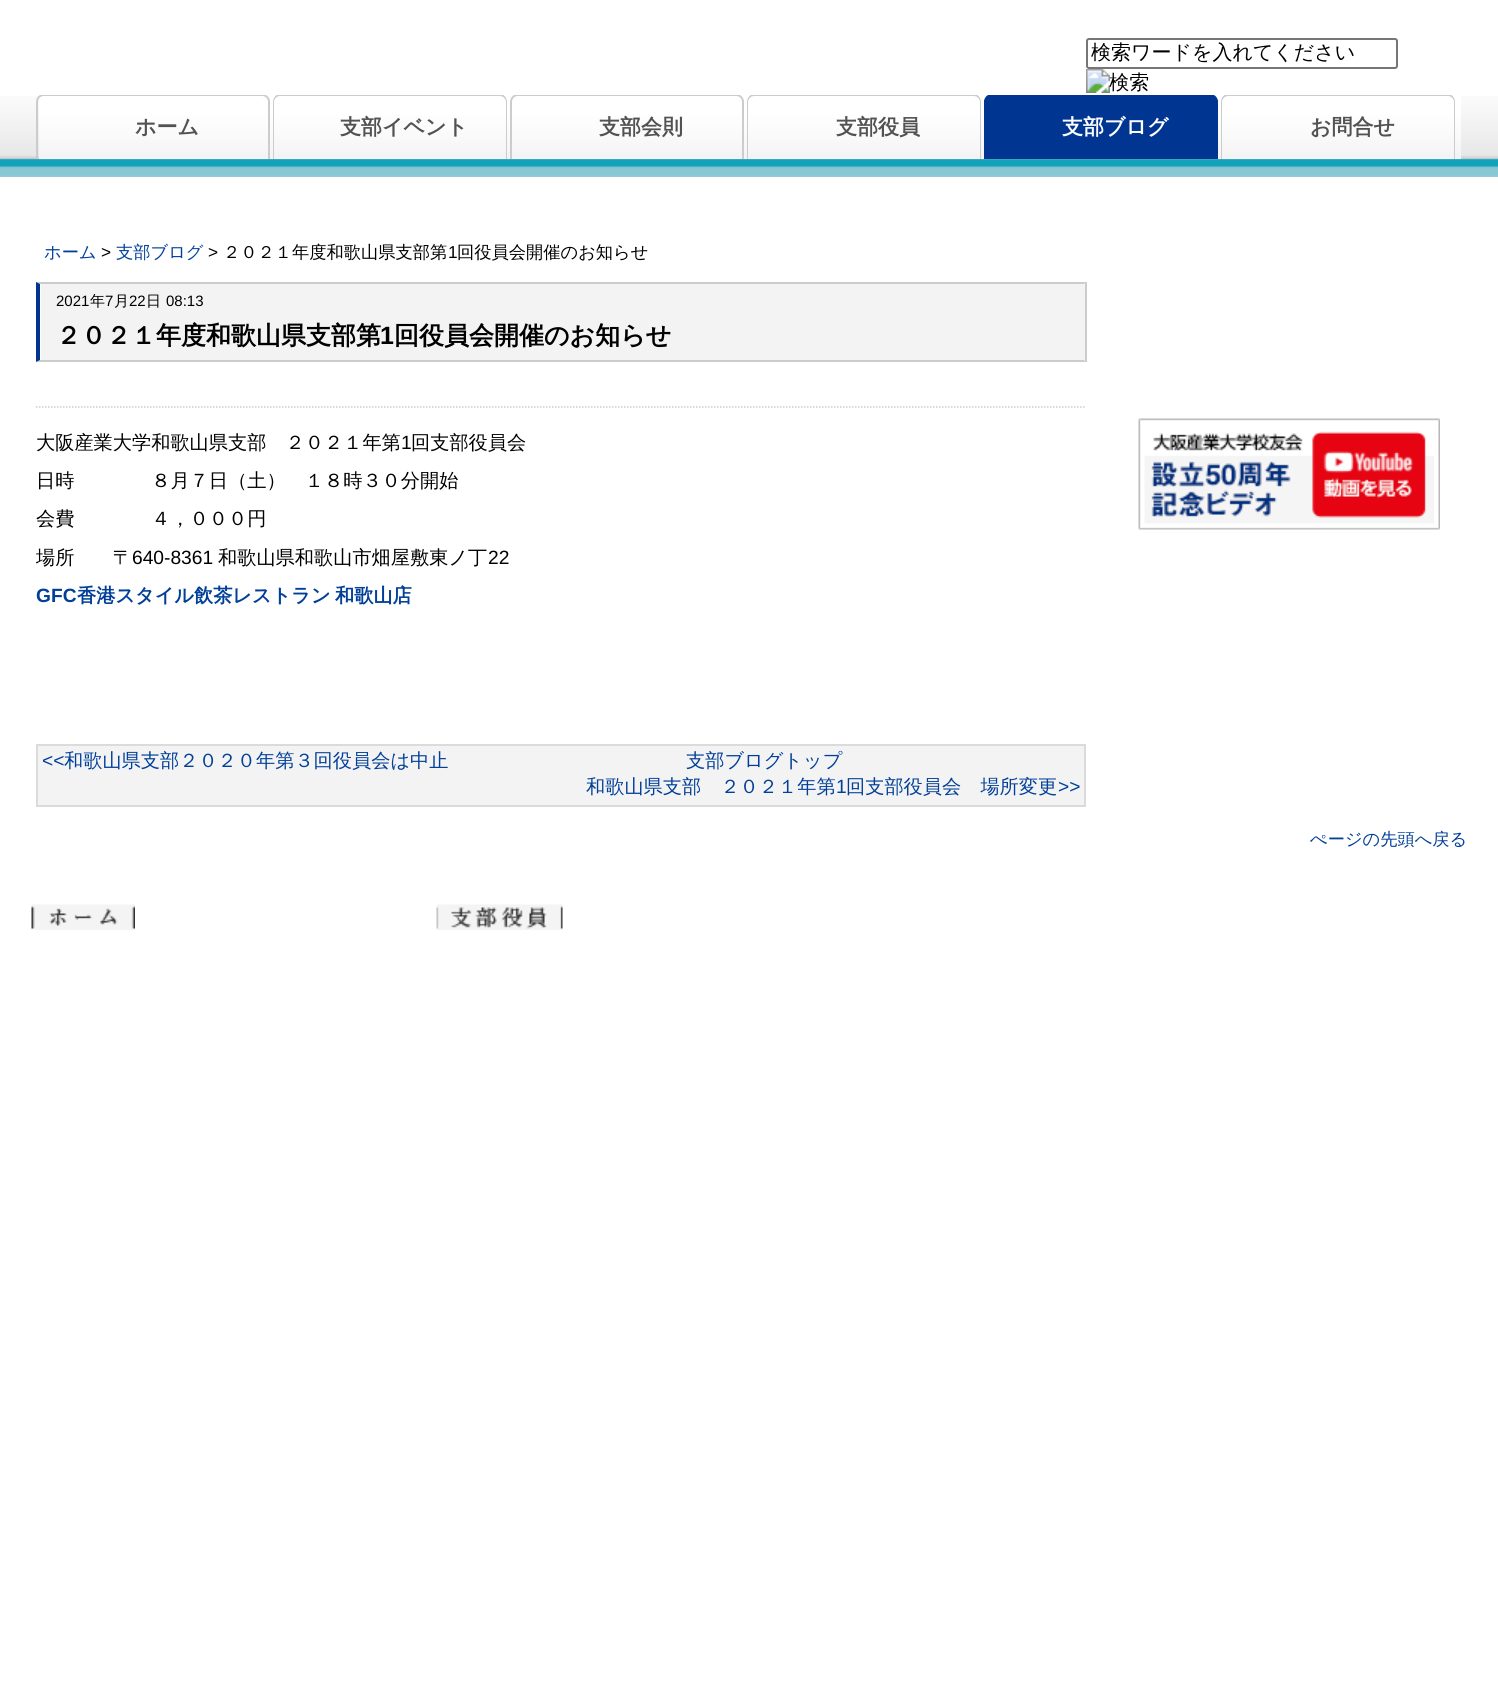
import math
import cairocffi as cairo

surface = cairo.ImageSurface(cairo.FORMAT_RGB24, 1498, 1682)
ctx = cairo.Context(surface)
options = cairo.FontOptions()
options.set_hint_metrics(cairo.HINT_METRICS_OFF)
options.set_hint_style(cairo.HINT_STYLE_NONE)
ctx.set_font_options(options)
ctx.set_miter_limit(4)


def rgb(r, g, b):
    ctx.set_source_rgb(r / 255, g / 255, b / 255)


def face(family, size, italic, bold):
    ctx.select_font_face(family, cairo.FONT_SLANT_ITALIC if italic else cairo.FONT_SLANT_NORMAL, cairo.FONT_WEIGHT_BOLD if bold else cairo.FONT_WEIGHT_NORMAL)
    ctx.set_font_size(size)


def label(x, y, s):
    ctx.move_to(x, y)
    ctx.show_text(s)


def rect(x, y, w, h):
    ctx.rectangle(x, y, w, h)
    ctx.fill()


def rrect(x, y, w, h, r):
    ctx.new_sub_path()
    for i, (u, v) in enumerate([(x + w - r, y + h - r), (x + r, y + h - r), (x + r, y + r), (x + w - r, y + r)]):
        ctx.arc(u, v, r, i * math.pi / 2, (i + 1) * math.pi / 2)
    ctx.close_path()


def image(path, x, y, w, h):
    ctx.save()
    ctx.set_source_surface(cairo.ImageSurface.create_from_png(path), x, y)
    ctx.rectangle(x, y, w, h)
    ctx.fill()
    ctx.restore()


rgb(255, 255, 255)
ctx.paint()
image('image0.png', 0, 96, 1498, 81)
image('image1.png', 39, 96, 1422, 63)
rrect(1087, 39, 310, 29, 2)
rgb(118, 118, 118)
ctx.stroke()
face('WenQuanYi Zen Hei Medium', 20, 0, 0)
rgb(0, 0, 0)
label(1091, 59, '検索ワードを入れてください')
image('image2.png', 1086, 69, 63, 24)
ctx.save()
ctx.rectangle(36, 95, 1433, 64)
ctx.clip()
rgb(204, 204, 204)
ctx.set_fill_rule(cairo.FILL_RULE_EVEN_ODD)
ctx.new_path()
ctx.move_to(44, 94)
ctx.line_to(262, 94)
ctx.curve_to(267, 94, 270, 98, 270, 102)
ctx.line_to(270, 159)
ctx.line_to(36, 159)
ctx.line_to(36, 102)
ctx.curve_to(36, 98, 39, 94, 44, 94)
ctx.close_path()
ctx.move_to(44, 96)
ctx.line_to(262, 96)
ctx.curve_to(266, 96, 268, 99, 268, 102)
ctx.line_to(268, 159)
ctx.line_to(38, 159)
ctx.line_to(38, 102)
ctx.curve_to(38, 99, 40, 96, 44, 96)
ctx.close_path()
ctx.fill()
ctx.restore()
face('WenQuanYi Zen Hei', 21, 0, 1)
rgb(82, 82, 82)
label(135, 134, 'ホーム')
ctx.save()
ctx.rectangle(36, 95, 1433, 64)
ctx.clip()
rgb(204, 204, 204)
ctx.set_fill_rule(cairo.FILL_RULE_EVEN_ODD)
ctx.new_path()
ctx.move_to(280, 94)
ctx.line_to(500, 94)
ctx.curve_to(504, 94, 507, 98, 507, 102)
ctx.line_to(507, 159)
ctx.line_to(273, 159)
ctx.line_to(273, 102)
ctx.curve_to(273, 98, 276, 94, 280, 94)
ctx.close_path()
ctx.move_to(280, 96)
ctx.line_to(500, 96)
ctx.curve_to(503, 96, 506, 99, 506, 102)
ctx.line_to(506, 159)
ctx.line_to(274, 159)
ctx.line_to(274, 102)
ctx.curve_to(274, 99, 277, 96, 280, 96)
ctx.close_path()
ctx.fill()
ctx.restore()
label(340, 134, '支部イベント')
ctx.save()
ctx.rectangle(36, 95, 1433, 64)
ctx.clip()
rgb(204, 204, 204)
ctx.set_fill_rule(cairo.FILL_RULE_EVEN_ODD)
ctx.new_path()
ctx.move_to(518, 94)
ctx.line_to(736, 94)
ctx.curve_to(741, 94, 744, 98, 744, 102)
ctx.line_to(744, 159)
ctx.line_to(510, 159)
ctx.line_to(510, 102)
ctx.curve_to(510, 98, 513, 94, 518, 94)
ctx.close_path()
ctx.move_to(518, 96)
ctx.line_to(736, 96)
ctx.curve_to(740, 96, 742, 99, 742, 102)
ctx.line_to(742, 159)
ctx.line_to(512, 159)
ctx.line_to(512, 102)
ctx.curve_to(512, 99, 514, 96, 518, 96)
ctx.close_path()
ctx.fill()
ctx.restore()
label(599, 134, '支部会則')
ctx.save()
ctx.rectangle(36, 95, 1433, 64)
ctx.clip()
rgb(204, 204, 204)
ctx.set_fill_rule(cairo.FILL_RULE_EVEN_ODD)
ctx.new_path()
ctx.move_to(754, 94)
ctx.line_to(974, 94)
ctx.curve_to(978, 94, 981, 98, 981, 102)
ctx.line_to(981, 159)
ctx.line_to(747, 159)
ctx.line_to(747, 102)
ctx.curve_to(747, 98, 750, 94, 754, 94)
ctx.close_path()
ctx.move_to(754, 96)
ctx.line_to(974, 96)
ctx.curve_to(977, 96, 980, 99, 980, 102)
ctx.line_to(980, 159)
ctx.line_to(748, 159)
ctx.line_to(748, 102)
ctx.curve_to(748, 99, 751, 96, 754, 96)
ctx.close_path()
ctx.fill()
ctx.restore()
label(836, 134, '支部役員')
rgb(0, 54, 146)
ctx.new_path()
ctx.move_to(992, 95)
ctx.line_to(1210, 95)
ctx.curve_to(1214.5, 95, 1218, 98.5, 1218, 103)
ctx.line_to(1218, 159)
ctx.line_to(984, 159)
ctx.line_to(984, 103)
ctx.curve_to(984, 98.5, 987.5, 95, 992, 95)
ctx.close_path()
ctx.fill()
ctx.save()
ctx.rectangle(36, 95, 1433, 64)
ctx.clip()
ctx.set_fill_rule(cairo.FILL_RULE_EVEN_ODD)
ctx.new_path()
ctx.move_to(992, 94)
ctx.line_to(1210, 94)
ctx.curve_to(1215, 94, 1218, 98, 1218, 102)
ctx.line_to(1218, 159)
ctx.line_to(984, 159)
ctx.line_to(984, 102)
ctx.curve_to(984, 98, 987, 94, 992, 94)
ctx.close_path()
ctx.move_to(992, 96)
ctx.line_to(1210, 96)
ctx.curve_to(1214, 96, 1216, 99, 1216, 102)
ctx.line_to(1216, 159)
ctx.line_to(986, 159)
ctx.line_to(986, 102)
ctx.curve_to(986, 99, 988, 96, 992, 96)
ctx.close_path()
ctx.fill()
ctx.restore()
rgb(255, 255, 255)
label(1062, 134, '支部ブログ')
ctx.save()
ctx.rectangle(36, 95, 1433, 64)
ctx.clip()
rgb(204, 204, 204)
ctx.set_fill_rule(cairo.FILL_RULE_EVEN_ODD)
ctx.new_path()
ctx.move_to(1228, 94)
ctx.line_to(1448, 94)
ctx.curve_to(1452, 94, 1455, 98, 1455, 102)
ctx.line_to(1455, 159)
ctx.line_to(1221, 159)
ctx.line_to(1221, 102)
ctx.curve_to(1221, 98, 1224, 94, 1228, 94)
ctx.close_path()
ctx.move_to(1228, 96)
ctx.line_to(1448, 96)
ctx.curve_to(1451, 96, 1454, 99, 1454, 102)
ctx.line_to(1454, 159)
ctx.line_to(1222, 159)
ctx.line_to(1222, 102)
ctx.curve_to(1222, 99, 1225, 96, 1228, 96)
ctx.close_path()
ctx.fill()
ctx.restore()
rgb(82, 82, 82)
label(1310, 134, 'お問合せ')
face('WenQuanYi Zen Hei Medium', 17.25, 0, 0)
rgb(1, 63, 152)
label(44, 258, 'ホーム')
face('Liberation Sans', 17.25, 0, 0)
rgb(0, 0, 0)
label(101, 258, '>')
face('WenQuanYi Zen Hei Medium', 17.25, 0, 0)
rgb(1, 63, 152)
label(116, 258, '支部ブログ')
face('Liberation Sans', 17.25, 0, 0)
rgb(0, 0, 0)
label(208, 258, '>')
face('WenQuanYi Zen Hei Medium', 17.25, 0, 0)
label(223, 258, '２０２１年度和歌山県支部第')
face('Liberation Sans', 17.25, 0, 0)
label(448, 258, '1')
face('WenQuanYi Zen Hei Medium', 17.25, 0, 0)
label(457, 258, '回役員会開催のお知らせ')
rgb(243, 243, 243)
rect(41, 284, 1044, 76)
rgb(204, 204, 204)
ctx.new_path()
ctx.move_to(36, 282)
ctx.line_to(1086, 282)
ctx.line_to(1084, 284)
ctx.line_to(40, 284)
ctx.close_path()
ctx.fill()
rect(1085, 282, 2, 80)
ctx.new_path()
ctx.move_to(1086, 362)
ctx.line_to(36, 362)
ctx.line_to(40, 360)
ctx.line_to(1084, 360)
ctx.close_path()
ctx.fill()
rgb(0, 54, 146)
ctx.new_path()
ctx.move_to(36, 362)
ctx.line_to(36, 282)
ctx.line_to(40, 284)
ctx.line_to(40, 360)
ctx.close_path()
ctx.fill()
face('Liberation Sans', 15, 0, 0)
rgb(0, 0, 0)
label(56, 306, '2021')
face('WenQuanYi Zen Hei Medium', 15, 0, 0)
label(90, 306, '年')
face('Liberation Sans', 15, 0, 0)
label(105, 306, '7')
face('WenQuanYi Zen Hei Medium', 15, 0, 0)
label(114, 306, '月')
face('Liberation Sans', 15, 0, 0)
label(129, 306, '22')
face('WenQuanYi Zen Hei Medium', 15, 0, 0)
label(146, 306, '日')
face('Liberation Sans', 15, 0, 0)
label(166, 306, '08:13')
face('WenQuanYi Zen Hei', 25, 0, 1)
label(56, 344, '２０２１年度和歌山県支部第')
face('Liberation Sans', 25, 0, 1)
label(380, 344, '1')
face('WenQuanYi Zen Hei', 25, 0, 1)
label(394, 344, '回役員会開催のお知らせ')
ctx.new_path()
ctx.move_to(36, 407)
ctx.line_to(1086, 407)
rgb(204, 204, 204)
ctx.set_line_width(1.5)
ctx.set_dash([1.5, 1.5])
ctx.stroke()
face('WenQuanYi Zen Hei Medium', 19.2, 0, 0)
rgb(0, 0, 0)
label(36, 449, '大阪産業大学和歌山県支部　２０２１年第')
face('Liberation Sans', 19.2, 0, 0)
label(401, 449, '1')
face('WenQuanYi Zen Hei Medium', 19.2, 0, 0)
label(411, 449, '回支部役員会')
label(36, 487, '日時　　　　８月７日（土）　１８時３０分開始')
label(36, 525, '会費　　　　４，０００円')
label(36, 564, '場所　　〒')
face('Liberation Sans', 19.2, 0, 0)
label(132, 564, '640-8361')
face('WenQuanYi Zen Hei Medium', 19.2, 0, 0)
label(218, 564, '和歌山県和歌山市畑屋敷東ノ丁')
face('Liberation Sans', 19.2, 0, 0)
label(488, 564, '22')
face('Liberation Sans', 19.2, 0, 1)
rgb(1, 63, 152)
label(36, 602, 'GFC')
face('WenQuanYi Zen Hei', 19.2, 0, 1)
label(77, 602, '香港スタイル飲茶レストラン')
label(335, 602, '和歌山店')
rgb(243, 243, 243)
ctx.rectangle(37, 745, 1048, 61)
ctx.fill_preserve()
rgb(219, 219, 219)
ctx.set_line_width(2)
ctx.set_dash([])
ctx.stroke()
face('Liberation Sans', 19.2, 0, 0)
rgb(1, 63, 152)
label(42, 767, '<<')
face('WenQuanYi Zen Hei Medium', 19.2, 0, 0)
label(64, 767, '和歌山県支部２０２０年第３回役員会は中止')
label(686, 767, '支部ブログトップ')
label(586, 793, '和歌山県支部　２０２１年第')
face('Liberation Sans', 19.2, 0, 0)
label(836, 793, '1')
face('WenQuanYi Zen Hei Medium', 19.2, 0, 0)
label(846, 793, '回支部役員会　場所変更')
face('Liberation Sans', 19.2, 0, 0)
label(1058, 793, '>>')
image('image3.png', 1138, 418, 302, 112)
face('WenQuanYi Zen Hei Medium', 17.25, 0, 0)
label(1310, 845, 'ぺージの先頭へ戻る')
image('image4.png', 31, 904, 104, 26)
image('image5.png', 436, 904, 127, 26)
surface.write_to_png('render.png')
